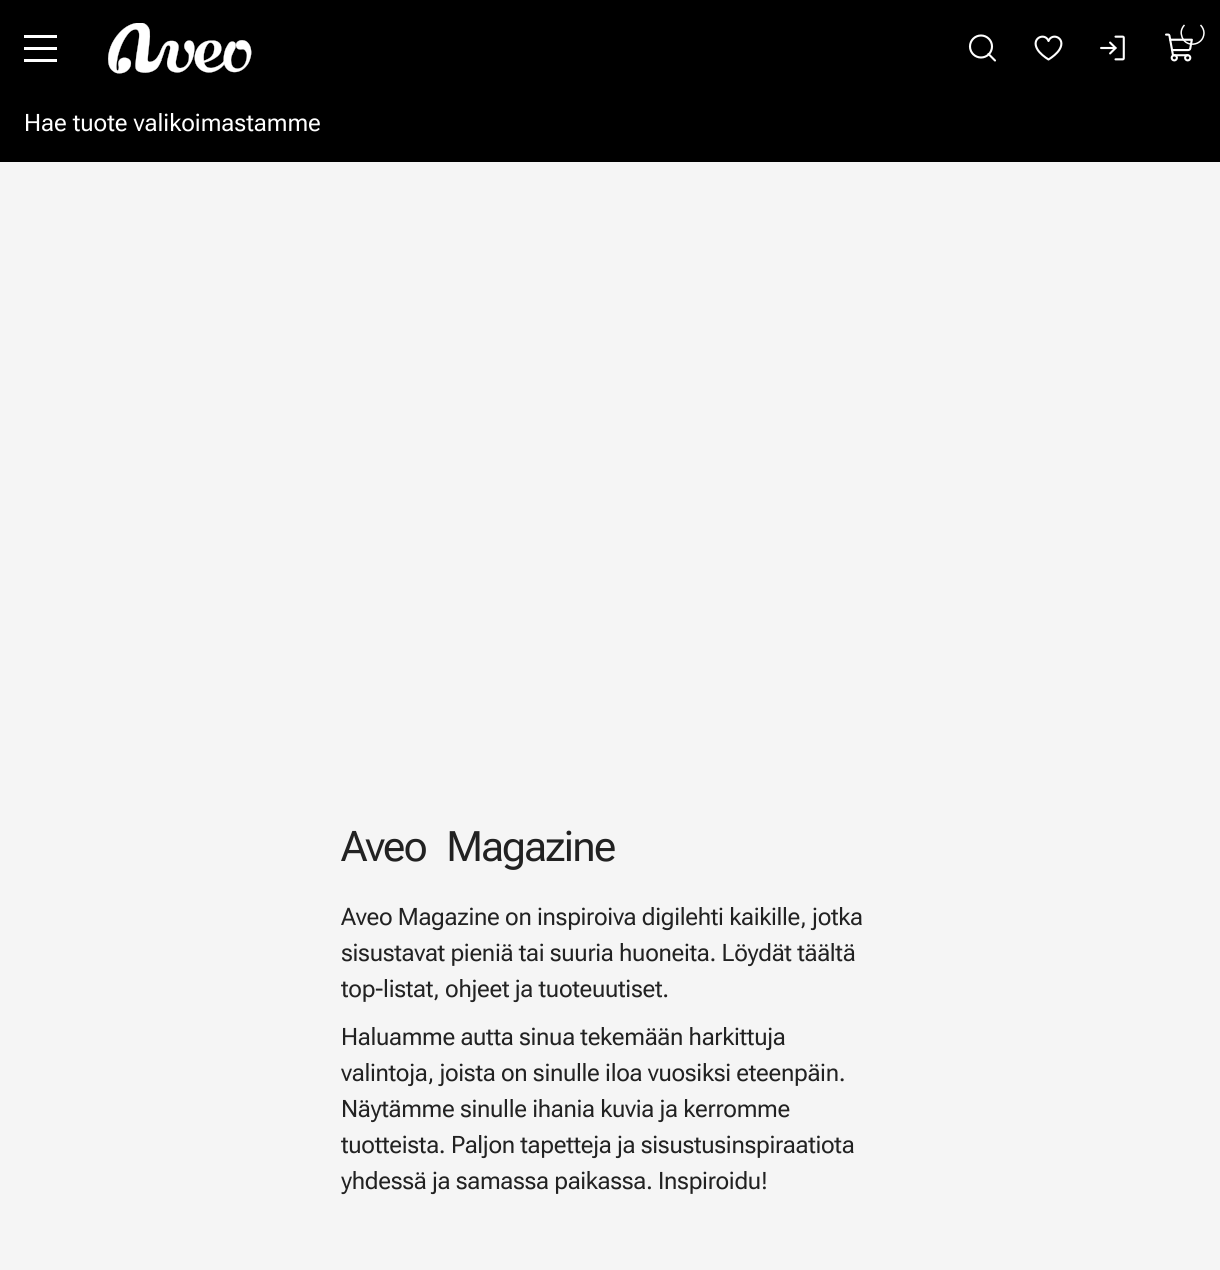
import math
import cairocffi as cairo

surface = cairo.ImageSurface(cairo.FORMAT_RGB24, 1220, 1270)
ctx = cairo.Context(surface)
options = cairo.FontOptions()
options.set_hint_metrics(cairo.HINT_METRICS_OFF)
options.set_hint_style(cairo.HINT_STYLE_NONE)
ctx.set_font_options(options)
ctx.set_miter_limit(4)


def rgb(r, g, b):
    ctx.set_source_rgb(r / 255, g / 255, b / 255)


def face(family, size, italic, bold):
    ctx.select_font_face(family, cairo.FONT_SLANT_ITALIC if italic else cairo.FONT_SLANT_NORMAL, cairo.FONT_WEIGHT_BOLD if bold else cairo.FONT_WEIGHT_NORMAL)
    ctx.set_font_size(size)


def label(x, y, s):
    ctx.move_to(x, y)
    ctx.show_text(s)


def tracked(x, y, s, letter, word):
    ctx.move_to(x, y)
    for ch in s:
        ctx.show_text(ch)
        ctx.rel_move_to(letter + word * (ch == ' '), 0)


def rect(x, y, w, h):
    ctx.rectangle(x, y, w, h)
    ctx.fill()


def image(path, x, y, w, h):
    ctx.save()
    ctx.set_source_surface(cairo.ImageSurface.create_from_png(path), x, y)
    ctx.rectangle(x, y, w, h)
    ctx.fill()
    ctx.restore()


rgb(245, 245, 245)
ctx.paint()
rgb(0, 0, 0)
rect(0, 0, 1220, 162)
rgb(255, 255, 255)
rect(24, 35, 33, 3)
rect(24, 47, 33, 3)
rect(24, 59, 33, 3)
image('image0.png', 108, 23, 144, 51)
ctx.new_path()
ctx.move_to(1048.5, 59.5)
ctx.curve_to(1044.5, 57, 1040, 53.5, 1037.5, 49.5)
ctx.curve_to(1030.5, 38, 1045, 32, 1048.5, 41)
ctx.curve_to(1052, 32, 1066.5, 38, 1059.5, 49.5)
ctx.curve_to(1057, 53.5, 1052.5, 57, 1048.5, 59.5)
ctx.close_path()
ctx.set_line_width(2.1)
ctx.set_line_cap(cairo.LINE_CAP_ROUND)
ctx.set_line_join(cairo.LINE_JOIN_ROUND)
ctx.stroke()
image('image1.png', 1100, 35, 25, 26)
image('image2.png', 1165, 33, 28, 29)
ctx.new_path()
ctx.move_to(1200.5, 25)
ctx.curve_to(1202.5, 27, 1204, 30, 1204, 33)
ctx.curve_to(1203.5, 46.5, 1184, 48.5, 1181.5, 35)
ctx.curve_to(1180.5, 31.5, 1182, 27.5, 1184.5, 25)
ctx.set_line_width(1.5)
ctx.set_line_cap(cairo.LINE_CAP_BUTT)
ctx.set_line_join(cairo.LINE_JOIN_MITER)
ctx.stroke()
ctx.arc(981, 46.5, 11, 0, 2 * math.pi)
ctx.set_line_width(2.1)
ctx.stroke()
ctx.new_path()
ctx.move_to(988.5, 54)
ctx.line_to(995, 60.5)
ctx.set_line_cap(cairo.LINE_CAP_ROUND)
ctx.set_line_join(cairo.LINE_JOIN_ROUND)
ctx.stroke()
face('Roboto Flex', 24, 0, 0)
label(24, 131, 'Hae tuote valikoimastamme')
face('Roboto Flex', 42, 0, 0)
rgb(34, 34, 34)
tracked(341, 861, 'Aveo Magazine', -1.75, 12)
face('Roboto Flex', 24, 0, 0)
tracked(341, 925, 'Aveo Magazine on inspiroiva digilehti kaikille, jotka', -0.3, 0)
tracked(341, 961, 'sisustavat pieniä tai suuria huoneita. Löydät täältä', -0.3, 0)
tracked(341, 997, 'top-listat, ohjeet ja tuoteuutiset.', -0.3, 0)
tracked(341, 1045, 'Haluamme autta sinua tekemään harkittuja', -0.3, 0)
tracked(341, 1081, 'valintoja, joista on sinulle iloa vuosiksi eteenpäin.', -0.3, 0)
tracked(341, 1117, 'Näytämme sinulle ihania kuvia ja kerromme', -0.3, 0)
tracked(341, 1153, 'tuotteista. Paljon tapetteja ja sisustusinspiraatiota', -0.3, 0)
tracked(341, 1189, 'yhdessä ja samassa paikassa. Inspiroidu!', -0.3, 0)
surface.write_to_png('render.png')
